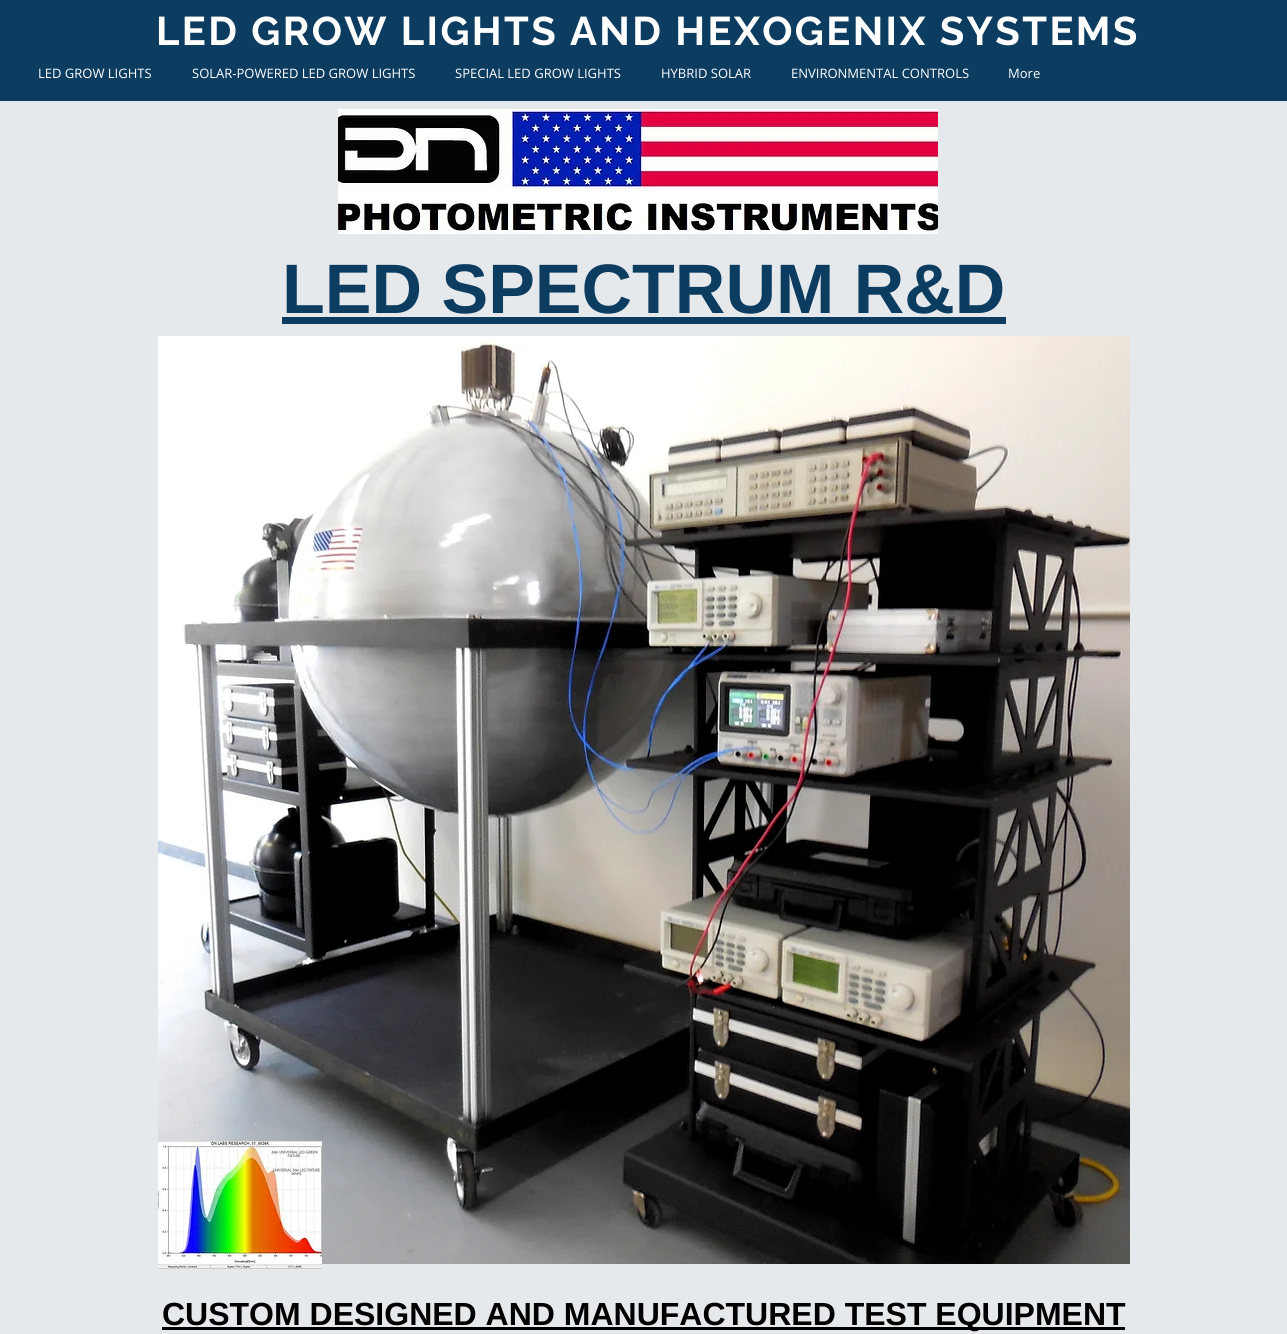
import math
import cairocffi as cairo

surface = cairo.ImageSurface(cairo.FORMAT_RGB24, 1287, 1334)
ctx = cairo.Context(surface)
options = cairo.FontOptions()
options.set_hint_metrics(cairo.HINT_METRICS_OFF)
options.set_hint_style(cairo.HINT_STYLE_NONE)
ctx.set_font_options(options)
ctx.set_miter_limit(4)


def rgb(r, g, b):
    ctx.set_source_rgb(r / 255, g / 255, b / 255)


def face(family, size, italic, bold):
    ctx.select_font_face(family, cairo.FONT_SLANT_ITALIC if italic else cairo.FONT_SLANT_NORMAL, cairo.FONT_WEIGHT_BOLD if bold else cairo.FONT_WEIGHT_NORMAL)
    ctx.set_font_size(size)


def label(x, y, s):
    ctx.move_to(x, y)
    ctx.show_text(s)


def tracked(x, y, s, letter, word):
    ctx.move_to(x, y)
    for ch in s:
        ctx.show_text(ch)
        ctx.rel_move_to(letter + word * (ch == ' '), 0)


def rect(x, y, w, h):
    ctx.rectangle(x, y, w, h)
    ctx.fill()


def image(path, x, y, w, h):
    ctx.save()
    ctx.set_source_surface(cairo.ImageSurface.create_from_png(path), x, y)
    ctx.rectangle(x, y, w, h)
    ctx.fill()
    ctx.restore()


rgb(230, 233, 235)
ctx.paint()
rgb(12, 60, 96)
rect(0, 0, 1287, 101)
face('Raleway', 40, 0, 1)
rgb(255, 255, 255)
tracked(156, 45, 'LED GROW LIGHTS AND HEXOGENIX SYSTEMS', 2.4, 0)
face('Open Sans', 13, 0, 0)
label(38, 78, 'LED GROW LIGHTS')
label(192, 78, 'SOLAR-POWERED LED GROW LIGHTS')
label(455, 78, 'SPECIAL LED GROW LIGHTS')
label(661, 78, 'HYBRID SOLAR')
label(791, 78, 'ENVIRONMENTAL CONTROLS')
label(1008, 78, 'More')
image('image0.png', 338, 109, 600, 125)
face('Liberation Sans', 70, 0, 1)
rgb(12, 60, 96)
label(282, 313, 'LED SPECTRUM R&D')
rect(282, 317, 724, 7)
image('image1.png', 158, 336, 972, 928)
image('image2.png', 158, 1141, 164, 128)
rgb(0, 0, 0)
rect(162, 1327, 963, 3)
face('Liberation Sans', 32, 0, 1)
label(162, 1325, 'CUSTOM DESIGNED AND MANUFACTURED TEST EQUIPMENT')
surface.write_to_png('render.png')
